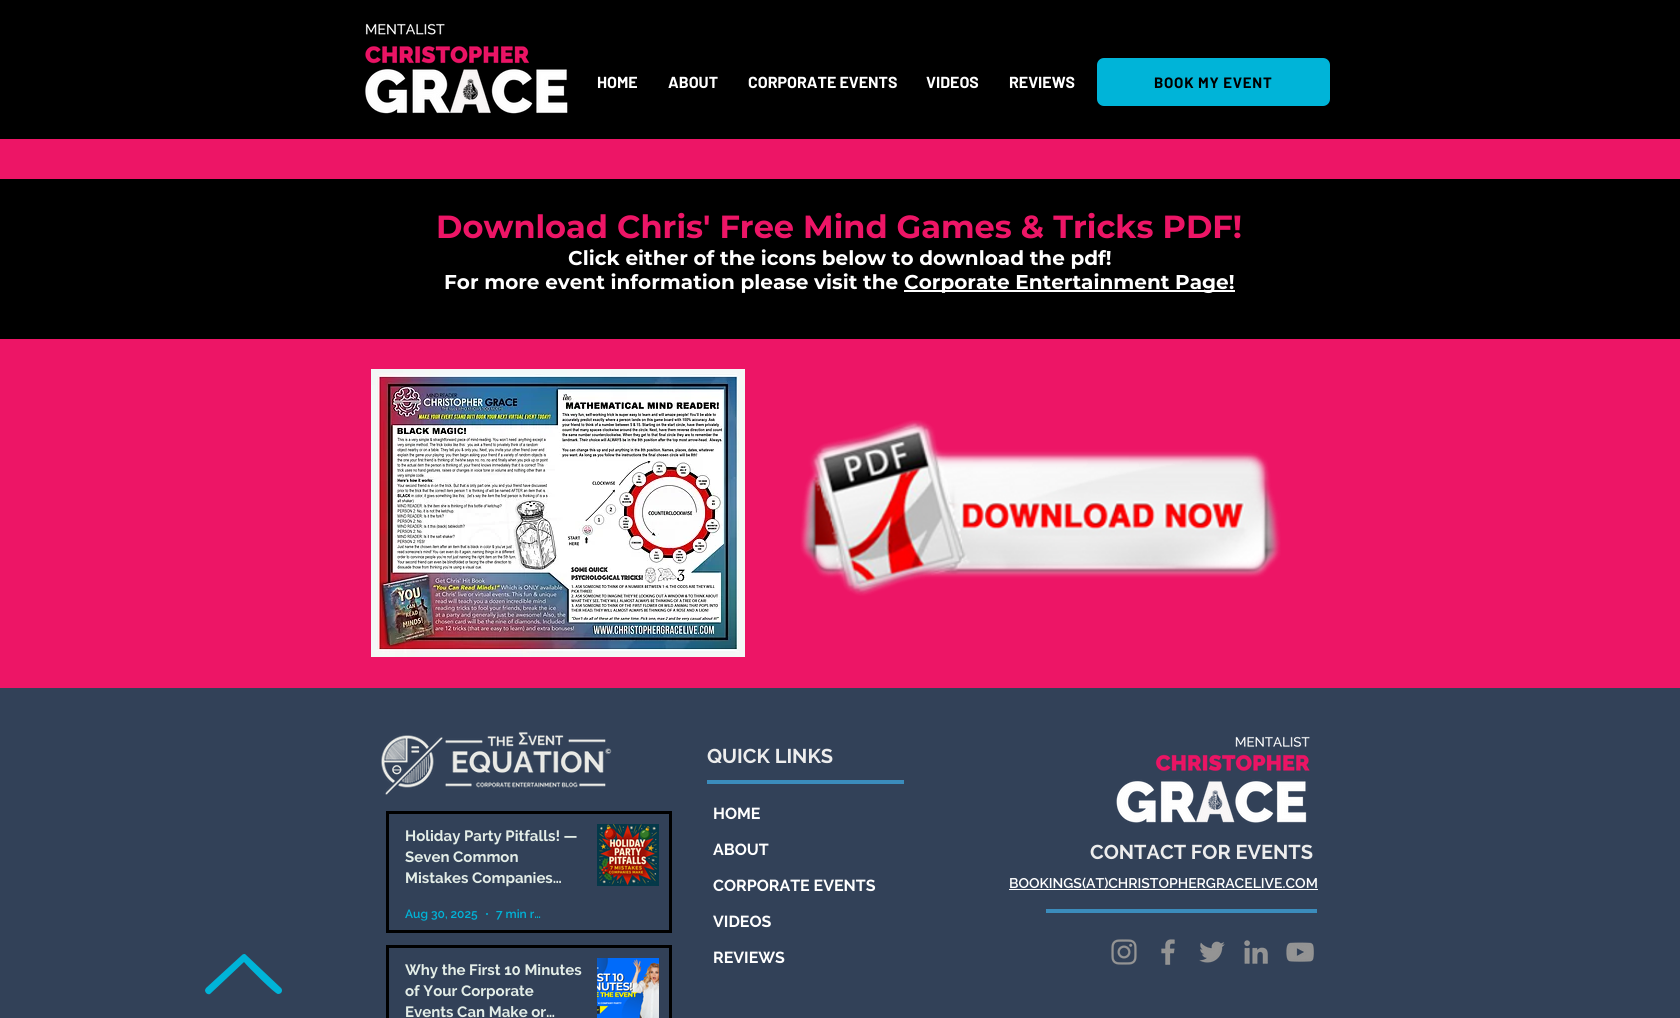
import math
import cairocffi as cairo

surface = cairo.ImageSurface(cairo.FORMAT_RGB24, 1680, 1018)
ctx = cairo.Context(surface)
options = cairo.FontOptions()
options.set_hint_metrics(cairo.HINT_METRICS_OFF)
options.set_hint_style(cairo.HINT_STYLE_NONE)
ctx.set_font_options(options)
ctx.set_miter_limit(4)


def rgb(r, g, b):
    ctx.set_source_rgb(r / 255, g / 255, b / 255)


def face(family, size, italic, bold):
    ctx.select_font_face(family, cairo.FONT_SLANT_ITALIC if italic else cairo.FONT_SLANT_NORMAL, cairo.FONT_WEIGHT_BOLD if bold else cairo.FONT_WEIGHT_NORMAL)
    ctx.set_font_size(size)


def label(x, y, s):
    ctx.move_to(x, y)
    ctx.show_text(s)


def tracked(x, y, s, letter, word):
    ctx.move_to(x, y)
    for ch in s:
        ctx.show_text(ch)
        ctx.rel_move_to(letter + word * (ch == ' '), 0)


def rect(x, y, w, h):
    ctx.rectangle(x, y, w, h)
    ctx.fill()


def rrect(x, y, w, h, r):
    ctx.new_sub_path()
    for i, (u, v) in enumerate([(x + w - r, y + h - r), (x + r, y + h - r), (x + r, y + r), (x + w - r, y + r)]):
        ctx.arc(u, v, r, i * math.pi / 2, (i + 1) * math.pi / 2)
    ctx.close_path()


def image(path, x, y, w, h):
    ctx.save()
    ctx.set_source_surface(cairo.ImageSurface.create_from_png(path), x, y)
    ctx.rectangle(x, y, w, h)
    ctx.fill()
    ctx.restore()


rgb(0, 0, 0)
ctx.paint()
image('image0.png', 365, 23, 203, 91)
face('Barlow', 16, 0, 1)
rgb(255, 255, 255)
label(597, 88, 'HOME')
label(668, 88, 'ABOUT')
label(748, 88, 'CORPORATE EVENTS')
label(926, 88, 'VIDEOS')
label(1009, 88, 'REVIEWS')
rgb(0, 180, 216)
rrect(1097, 58, 233, 48, 7)
ctx.fill()
face('Barlow', 15, 0, 1)
rgb(0, 0, 0)
tracked(1154, 88, 'BOOK MY EVENT', 0.75, 0)
rgb(237, 21, 102)
rect(0, 139, 1680, 40)
face('Montserrat', 32, 0, 1)
label(436, 238, 'Download Chris\' Free Mind Games & Tricks PDF!')
face('Montserrat', 20, 0, 1)
rgb(255, 255, 255)
label(568, 265, 'Click either of the icons below to download the pdf!')
label(444, 289, 'For more event information please visit the')
rect(904, 290, 331, 2)
label(904, 289, 'Corporate Entertainment Page!')
rgb(237, 21, 102)
rect(0, 339, 1680, 349)
image('image1.png', 371, 369, 374, 288)
image('image2.png', 800, 420, 481, 176)
rgb(50, 65, 88)
rect(0, 688, 1680, 330)
rgb(0, 180, 216)
ctx.new_path()
ctx.move_to(278, 994)
ctx.curve_to(275, 994, 248, 967, 244, 962)
ctx.line_to(210, 994)
ctx.curve_to(208, 995, 205, 993, 205, 990)
ctx.line_to(206, 988)
ctx.line_to(242, 955)
ctx.curve_to(243, 954, 244, 954, 245, 954)
ctx.line_to(281, 988)
ctx.curve_to(283, 990, 282, 994, 278, 994)
ctx.close_path()
ctx.fill()
image('image3.png', 381, 731, 231, 64)
face('Raleway', 20, 0, 1)
rgb(237, 237, 237)
label(707, 763, 'QUICK LINKS')
face('Raleway', 16, 0, 1)
rgb(255, 255, 255)
label(713, 819, 'HOME')
label(713, 855, 'ABOUT')
label(713, 891, 'CORPORATE EVENTS')
label(713, 927, 'VIDEOS')
label(713, 963, 'REVIEWS')
image('image4.png', 1116, 736, 194, 87)
rgb(59, 140, 188)
rect(707, 780, 197, 4)
ctx.rectangle(387.5, 812.5, 283, 119)
rgb(0, 0, 0)
ctx.set_line_width(3)
ctx.stroke()
face('Raleway', 15, 0, 1)
rgb(227, 237, 231)
label(405, 841, 'Holiday Party Pitfalls! —')
label(405, 862, 'Seven Common')
label(405, 883, 'Mistakes Companies…')
face('Raleway SemiBold', 12, 0, 0)
rgb(0, 180, 216)
label(405, 918, 'Aug 30, 2025')
ctx.new_path()
ctx.arc(487, 914, 1, 0, 2 * math.pi)
ctx.fill()
label(496, 918, '7 min r…')
image('image5.png', 597, 824, 62, 62)
ctx.rectangle(387.5, 946.5, 283, 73)
rgb(0, 0, 0)
ctx.stroke()
face('Raleway', 15, 0, 1)
rgb(227, 237, 231)
label(405, 975, 'Why the First 10 Minutes')
label(405, 996, 'of Your Corporate')
label(405, 1017, 'Events Can Make or…')
image('image6.png', 597, 958, 62, 60)
face('Raleway', 20, 0, 1)
rgb(237, 237, 237)
label(1090, 859, 'CONTACT FOR EVENTS')
face('Raleway SemiBold', 14, 0, 0)
rgb(255, 255, 255)
label(1009, 888, 'BOOKINGS(AT)CHRISTOPHERGRACELIVE.COM')
rect(1009, 889, 309, 1)
rgb(59, 140, 188)
rect(1046, 909, 271, 4)
image('image7.png', 1111, 939, 26, 26)
image('image8.png', 1161, 939, 14, 26)
image('image9.png', 1199, 941, 26, 22)
image('image10.png', 1244, 940, 24, 24)
image('image11.png', 1286, 942, 28, 20)
surface.write_to_png('render.png')
